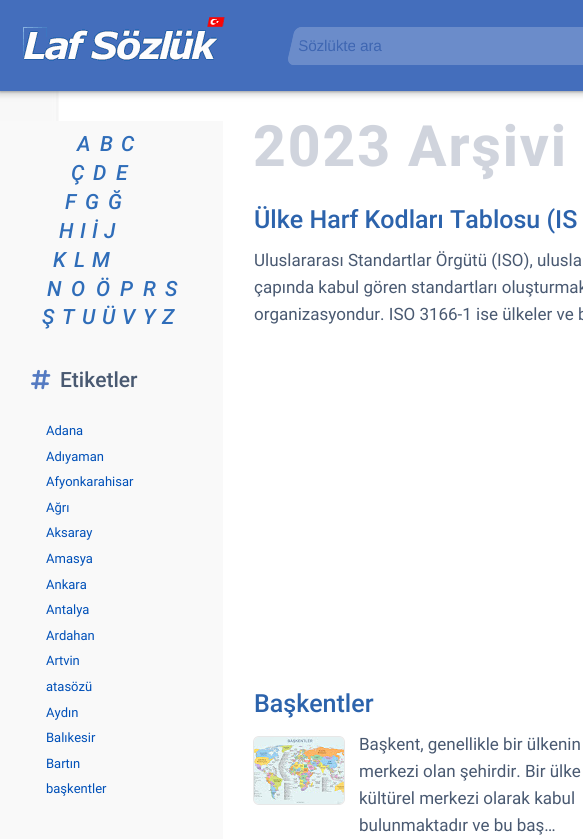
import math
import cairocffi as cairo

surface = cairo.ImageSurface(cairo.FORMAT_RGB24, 583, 839)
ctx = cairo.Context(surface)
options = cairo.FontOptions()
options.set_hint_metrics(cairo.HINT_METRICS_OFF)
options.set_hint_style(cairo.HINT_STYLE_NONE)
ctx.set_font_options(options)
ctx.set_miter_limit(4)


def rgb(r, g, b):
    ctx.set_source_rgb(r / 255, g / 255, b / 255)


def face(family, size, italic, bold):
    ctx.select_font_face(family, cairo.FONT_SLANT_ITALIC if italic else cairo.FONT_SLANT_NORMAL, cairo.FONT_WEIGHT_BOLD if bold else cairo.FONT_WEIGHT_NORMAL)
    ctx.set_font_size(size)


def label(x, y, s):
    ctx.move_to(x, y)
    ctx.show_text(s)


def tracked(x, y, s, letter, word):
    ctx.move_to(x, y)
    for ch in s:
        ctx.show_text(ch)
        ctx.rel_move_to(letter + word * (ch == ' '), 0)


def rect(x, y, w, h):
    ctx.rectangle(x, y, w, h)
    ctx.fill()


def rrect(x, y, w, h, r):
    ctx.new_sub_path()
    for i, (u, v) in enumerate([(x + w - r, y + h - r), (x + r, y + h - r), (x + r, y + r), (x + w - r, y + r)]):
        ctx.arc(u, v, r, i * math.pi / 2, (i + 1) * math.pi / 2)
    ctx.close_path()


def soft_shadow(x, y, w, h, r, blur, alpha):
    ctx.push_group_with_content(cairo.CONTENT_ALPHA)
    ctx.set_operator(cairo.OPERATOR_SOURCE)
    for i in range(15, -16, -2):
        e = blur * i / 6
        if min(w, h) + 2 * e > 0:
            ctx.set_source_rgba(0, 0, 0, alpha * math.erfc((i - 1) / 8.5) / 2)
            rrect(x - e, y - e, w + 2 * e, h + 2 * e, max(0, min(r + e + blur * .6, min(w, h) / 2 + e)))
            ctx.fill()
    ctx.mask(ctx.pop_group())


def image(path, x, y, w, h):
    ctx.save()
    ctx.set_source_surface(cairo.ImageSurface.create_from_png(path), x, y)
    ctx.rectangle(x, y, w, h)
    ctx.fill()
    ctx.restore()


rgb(255, 255, 255)
ctx.paint()
image('image0.png', 0, 91, 59, 30)
rgb(60, 64, 67)
soft_shadow(-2, 0, 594, 95, 0, 3, 0.21)
soft_shadow(0, 1, 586, 91, 0, 1, 0.33)
rgb(68, 110, 188)
rect(0, 0, 583, 91)
image('image1.png', 23, 17, 202, 44)
rgb(107, 140, 202)
ctx.new_path()
ctx.move_to(302, 27)
ctx.line_to(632, 27)
ctx.curve_to(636, 27, 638, 30, 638, 34)
ctx.line_to(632, 58)
ctx.curve_to(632, 62, 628, 65, 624, 65)
ctx.line_to(294, 65)
ctx.curve_to(290, 65, 288, 62, 288, 58)
ctx.line_to(294, 34)
ctx.curve_to(294, 30, 298, 27, 302, 27)
ctx.close_path()
ctx.fill()
ctx.new_path()
ctx.move_to(302, 27.5)
ctx.line_to(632, 27.5)
ctx.curve_to(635.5, 27.5, 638, 30.5, 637, 34)
ctx.line_to(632, 58)
ctx.curve_to(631, 61.5, 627.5, 64.5, 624, 64.5)
ctx.line_to(294, 64.5)
ctx.curve_to(290.5, 64.5, 288, 61.5, 289, 58)
ctx.line_to(294, 34)
ctx.curve_to(295, 30.5, 298.5, 27.5, 302, 27.5)
ctx.close_path()
ctx.set_line_width(1)
ctx.stroke()
ctx.save()
ctx.new_path()
ctx.move_to(303, 28)
ctx.line_to(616, 28)
ctx.line_to(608.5, 63)
ctx.line_to(295.5, 63)
ctx.close_path()
ctx.clip()
face('Liberation Sans', 15.5, 0, 0)
rgb(62, 102, 178)
tracked(298, 51, 'Sözlükte ara', -0.2, 0)
ctx.restore()
rgb(249, 249, 249)
rect(0, 121, 223, 718)
face('Roboto Medium', 21, 1, 0)
rgb(47, 109, 185)
tracked(77, 151, 'A', 1, 0)
tracked(100, 151, 'B', 1, 0)
tracked(121, 151, 'C', 1, 0)
tracked(71, 180, 'Ç', 1, 0)
tracked(93, 180, 'D', 1, 0)
tracked(116, 180, 'E', 1, 0)
tracked(65, 209, 'F', 1, 0)
tracked(85, 209, 'G', 1, 0)
tracked(108, 209, 'Ğ', 1, 0)
tracked(59, 238, 'H', 1, 0)
tracked(80, 238, 'I', 1, 0)
tracked(92, 238, 'İ', 1, 0)
tracked(104, 238, 'J', 1, 0)
tracked(53, 267, 'K', 1, 0)
tracked(74, 267, 'L', 1, 0)
tracked(92, 267, 'M', 2, 0)
tracked(47, 296, 'N', 1, 0)
tracked(71, 296, 'O', 1, 0)
tracked(96, 296, 'Ö', 1, 0)
tracked(120, 296, 'P', 1, 0)
tracked(143, 296, 'R', 1, 0)
tracked(165, 296, 'S', 1, 0)
tracked(42, 324, 'Ş', 1, 0)
tracked(62, 324, 'T', 1, 0)
tracked(82, 324, 'U', 1, 0)
tracked(102, 324, 'Ü', 1, 0)
tracked(122, 324, 'V', 1, 0)
tracked(143, 324, 'Y', 1, 0)
tracked(162, 324, 'Z', 1, 0)
image('image2.png', 31, 369, 20, 21)
face('Roboto Medium', 21, 0, 0)
rgb(73, 89, 113)
label(60, 387, 'Etiketler')
face('Roboto', 13, 0, 0)
rgb(0, 80, 184)
label(46, 435, 'Adana')
label(46, 461, 'Adıyaman')
label(46, 486, 'Afyonkarahisar')
label(46, 512, 'Ağrı')
label(46, 537, 'Aksaray')
label(46, 563, 'Amasya')
label(46, 589, 'Ankara')
label(46, 614, 'Antalya')
label(46, 640, 'Ardahan')
label(46, 665, 'Artvin')
label(46, 691, 'atasözü')
label(46, 717, 'Aydın')
label(46, 742, 'Balıkesir')
label(46, 768, 'Bartın')
label(46, 793, 'başkentler')
face('Roboto ExtraBold', 57, 0, 0)
rgb(208, 212, 221)
tracked(253, 166, '2023 Arşivi', 1.9, 0)
face('Roboto Medium', 25, 0, 0)
rgb(44, 99, 172)
label(254, 228, 'Ülke Harf Kodları Tablosu (IS')
face('Roboto', 17, 0, 0)
rgb(73, 89, 113)
label(254, 266, 'Uluslararası Standartlar Örgütü (ISO), ulusla')
label(254, 293, 'çapında kabul gören standartları oluşturmak')
label(254, 320, 'organizasyondur. ISO 3166-1 ise ülkeler ve b')
face('Roboto Medium', 25, 0, 0)
rgb(44, 99, 172)
label(254, 712, 'Başkentler')
image('image3.png', 254, 737, 90, 67)
rrect(253.5, 736.5, 91, 68, 5.5)
rgb(231, 231, 231)
ctx.stroke()
face('Roboto', 17, 0, 0)
rgb(73, 89, 113)
label(359, 750, 'Başkent, genellikle bir ülkenin')
label(359, 777, 'merkezi olan şehirdir. Bir ülke')
label(359, 804, 'kültürel merkezi olarak kabul')
label(359, 831, 'bulunmaktadır ve bu baş…')
surface.write_to_png('render.png')
